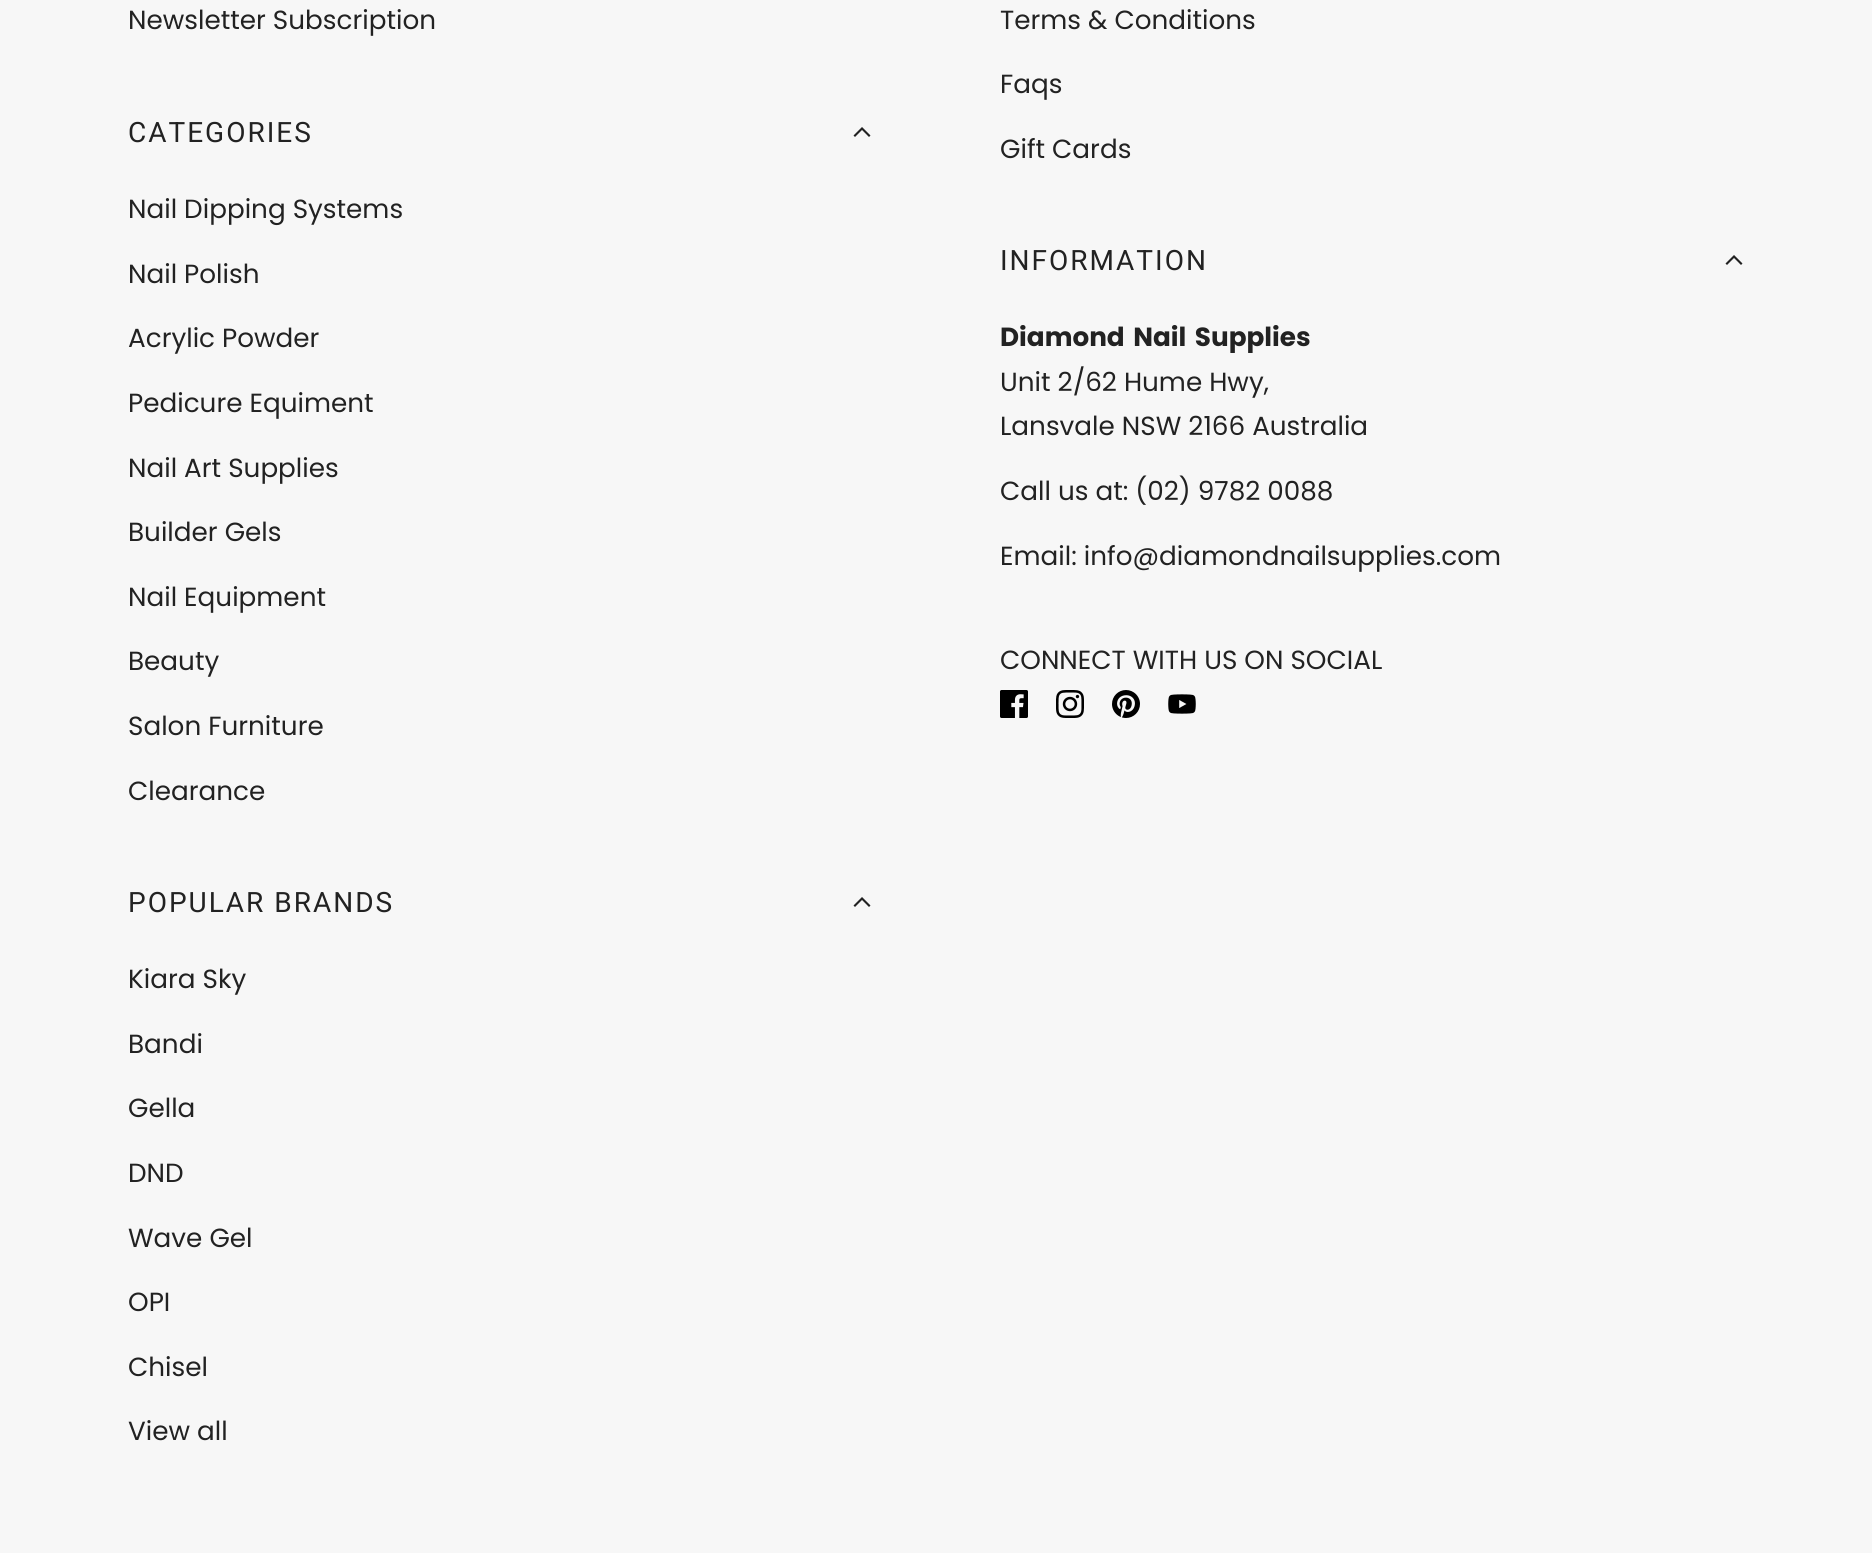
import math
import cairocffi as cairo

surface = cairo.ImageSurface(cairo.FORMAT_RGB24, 1872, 1553)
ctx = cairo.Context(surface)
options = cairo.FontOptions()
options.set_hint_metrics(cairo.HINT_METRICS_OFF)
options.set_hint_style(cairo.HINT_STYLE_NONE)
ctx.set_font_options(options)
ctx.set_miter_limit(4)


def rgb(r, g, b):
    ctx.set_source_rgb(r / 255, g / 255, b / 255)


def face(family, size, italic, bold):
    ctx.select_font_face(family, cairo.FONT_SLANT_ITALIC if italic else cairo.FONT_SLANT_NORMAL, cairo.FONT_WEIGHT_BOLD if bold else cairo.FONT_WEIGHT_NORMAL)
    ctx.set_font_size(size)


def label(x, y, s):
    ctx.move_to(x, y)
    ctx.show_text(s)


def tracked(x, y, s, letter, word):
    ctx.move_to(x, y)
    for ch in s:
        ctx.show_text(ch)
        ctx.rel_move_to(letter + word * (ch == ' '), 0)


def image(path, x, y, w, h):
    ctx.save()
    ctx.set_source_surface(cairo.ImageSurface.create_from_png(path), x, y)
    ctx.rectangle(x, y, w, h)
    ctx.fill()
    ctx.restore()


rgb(247, 247, 247)
ctx.paint()
face('Poppins', 26.25, 0, 0)
rgb(34, 34, 34)
label(128, 29, 'Newsletter Subscription')
face('Roboto', 28, 0, 0)
tracked(128, 142, 'CATEGORIES', 2, 0)
ctx.new_path()
ctx.move_to(862, 130)
ctx.line_to(869, 137)
ctx.line_to(870.5, 135.5)
ctx.line_to(862, 127)
ctx.line_to(853.5, 135.5)
ctx.line_to(855, 137)
ctx.close_path()
ctx.fill()
face('Poppins', 26.25, 0, 0)
label(128, 218, 'Nail Dipping Systems')
label(128, 283, 'Nail Polish')
label(128, 347, 'Acrylic Powder')
label(128, 412, 'Pedicure Equiment')
label(128, 477, 'Nail Art Supplies')
label(128, 541, 'Builder Gels')
label(128, 606, 'Nail Equipment')
label(128, 670, 'Beauty')
label(128, 735, 'Salon Furniture')
label(128, 800, 'Clearance')
face('Roboto', 28, 0, 0)
tracked(128, 912, 'POPULAR BRANDS', 2, 0)
ctx.new_path()
ctx.move_to(862, 900)
ctx.line_to(869, 907)
ctx.line_to(870.5, 905.5)
ctx.line_to(862, 897)
ctx.line_to(853.5, 905.5)
ctx.line_to(855, 907)
ctx.close_path()
ctx.fill()
face('Poppins', 26.25, 0, 0)
label(128, 988, 'Kiara Sky')
label(128, 1053, 'Bandi')
label(128, 1117, 'Gella')
label(128, 1182, 'DND')
label(128, 1247, 'Wave Gel')
label(128, 1311, 'OPI')
label(128, 1376, 'Chisel')
label(128, 1440, 'View all')
label(1000, 29, 'Terms & Conditions')
label(1000, 93, 'Faqs')
label(1000, 158, 'Gift Cards')
face('Roboto', 28, 0, 0)
tracked(1000, 270, 'INFORMATION', 2, 0)
ctx.new_path()
ctx.move_to(1734, 258)
ctx.line_to(1741, 265)
ctx.line_to(1742.5, 263.5)
ctx.line_to(1734, 255)
ctx.line_to(1725.5, 263.5)
ctx.line_to(1727, 265)
ctx.close_path()
ctx.fill()
face('Poppins', 26.25, 0, 1)
tracked(1000, 346, 'Diamond Nail Supplies', 0, 3)
face('Poppins', 26.25, 0, 0)
label(1000, 391, 'Unit 2/62 Hume Hwy,')
label(1000, 435, 'Lansvale NSW 2166 Australia')
label(1000, 500, 'Call us at: (02) 9782 0088')
label(1000, 565, 'Email: info@diamondnailsupplies.com')
label(1000, 669, 'CONNECT WITH US ON SOCIAL')
image('image0.png', 1000, 690, 28, 28)
image('image1.png', 1056, 690, 28, 28)
image('image2.png', 1112, 690, 28, 28)
image('image3.png', 1168, 694, 28, 20)
surface.write_to_png('render.png')
